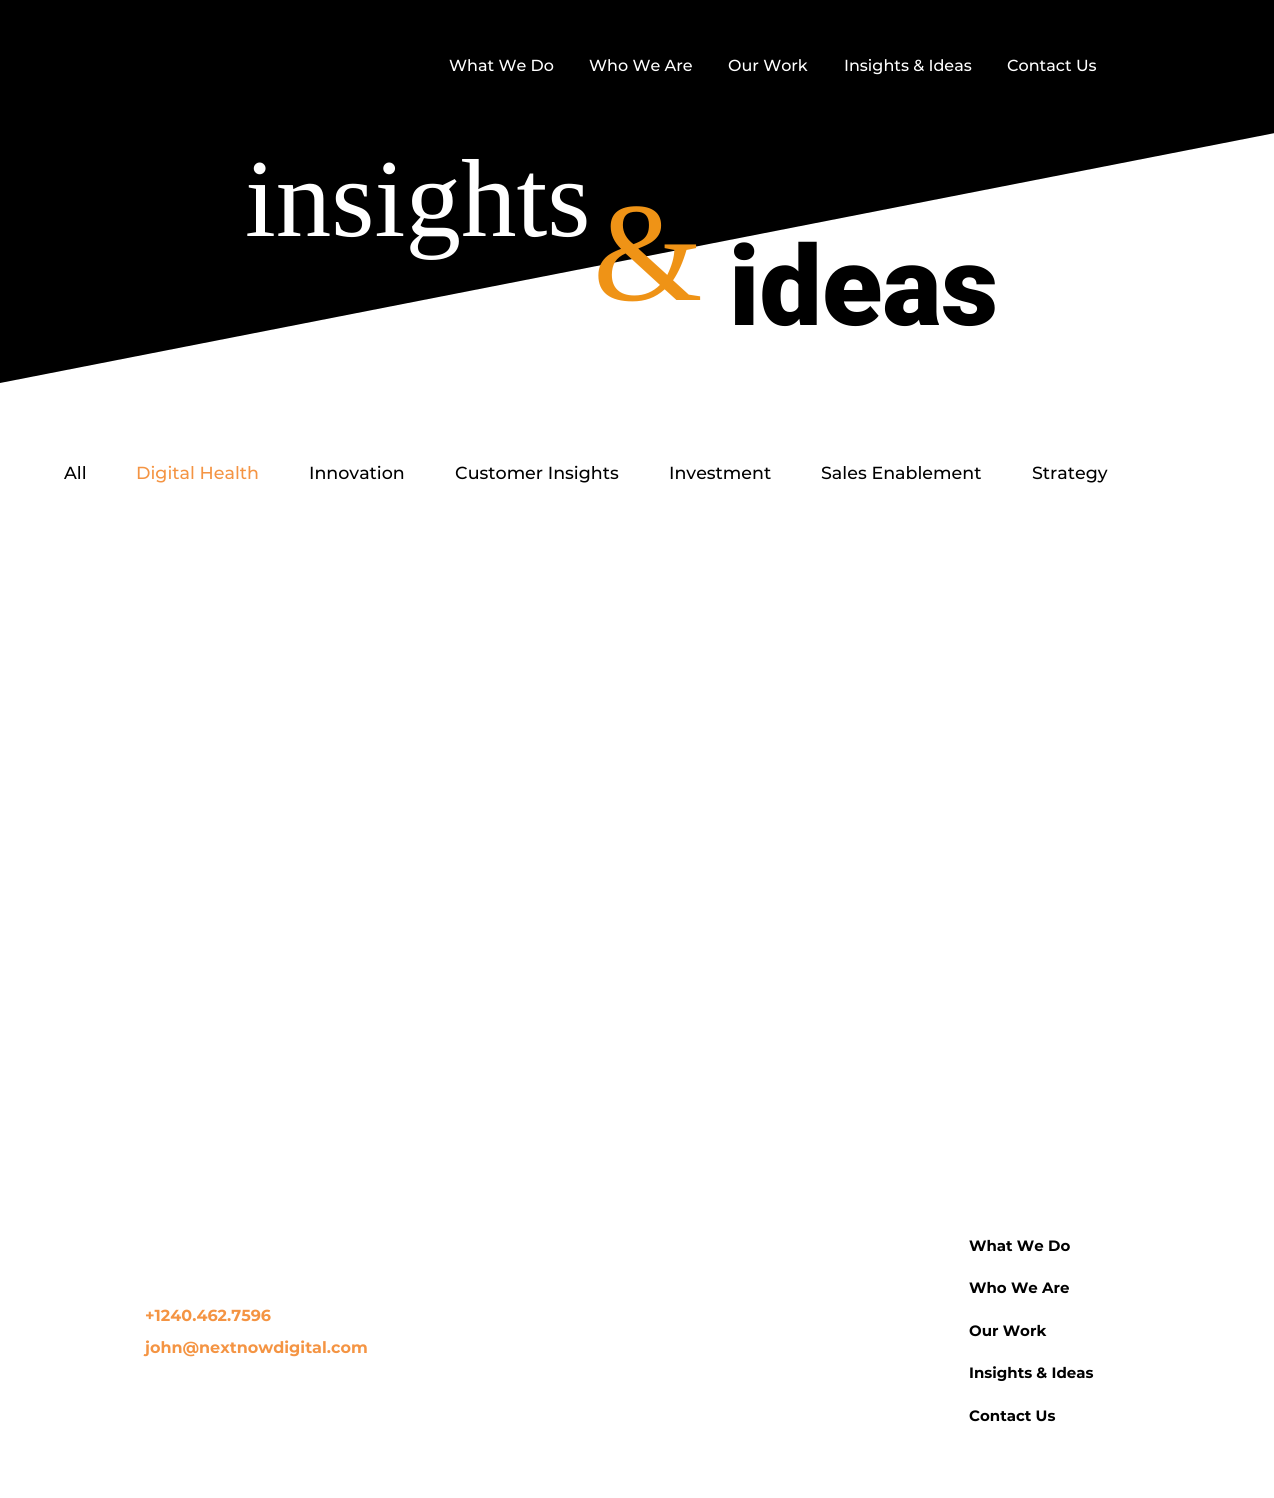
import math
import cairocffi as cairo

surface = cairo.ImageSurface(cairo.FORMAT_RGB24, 1274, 1498)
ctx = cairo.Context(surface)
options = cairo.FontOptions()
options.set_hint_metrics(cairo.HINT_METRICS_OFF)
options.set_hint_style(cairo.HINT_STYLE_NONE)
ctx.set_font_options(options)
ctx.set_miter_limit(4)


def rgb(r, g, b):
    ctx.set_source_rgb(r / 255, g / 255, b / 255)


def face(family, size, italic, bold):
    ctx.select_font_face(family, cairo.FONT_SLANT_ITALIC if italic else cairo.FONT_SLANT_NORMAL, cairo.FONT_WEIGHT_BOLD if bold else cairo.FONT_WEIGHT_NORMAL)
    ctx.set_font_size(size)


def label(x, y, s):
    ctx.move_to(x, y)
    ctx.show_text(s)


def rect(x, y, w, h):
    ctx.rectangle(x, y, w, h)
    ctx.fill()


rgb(255, 255, 255)
ctx.paint()
rgb(0, 0, 0)
rect(0, 0, 1274, 133)
face('Montserrat Medium', 16, 0, 0)
rgb(255, 255, 255)
label(449, 71, 'What We Do')
label(589, 71, 'Who We Are')
label(728, 71, 'Our Work')
label(844, 71, 'Insights & Ideas')
label(1007, 71, 'Contact Us')
rgb(0, 0, 0)
ctx.new_path()
ctx.move_to(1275, 133)
ctx.line_to(0, 383)
ctx.line_to(0, 133)
ctx.close_path()
ctx.fill()
face('Liberation Serif', 111, 0, 0)
rgb(255, 255, 255)
label(245, 236, 'insights')
face('Liberation Serif', 141, 0, 0)
rgb(239, 147, 22)
label(593, 300, '&')
face('Roboto Black', 111, 0, 0)
rgb(0, 0, 0)
label(729, 325, 'ideas')
face('Montserrat Medium', 17.5, 0, 0)
label(64, 479, 'All')
rgb(244, 148, 67)
label(136, 479, 'Digital Health')
rgb(0, 0, 0)
label(309, 479, 'Innovation')
label(455, 479, 'Customer Insights')
label(669, 479, 'Investment')
label(821, 479, 'Sales Enablement')
label(1032, 479, 'Strategy')
face('Montserrat', 16, 0, 1)
rgb(244, 148, 67)
label(145, 1321, '+1240.462.7596')
label(145, 1353, 'john@nextnowdigital.com')
face('Montserrat', 15, 0, 1)
rgb(0, 0, 0)
label(969, 1251, 'What We Do')
label(969, 1293, 'Who We Are')
label(969, 1336, 'Our Work')
label(969, 1378, 'Insights & Ideas')
label(969, 1421, 'Contact Us')
surface.write_to_png('render.png')
